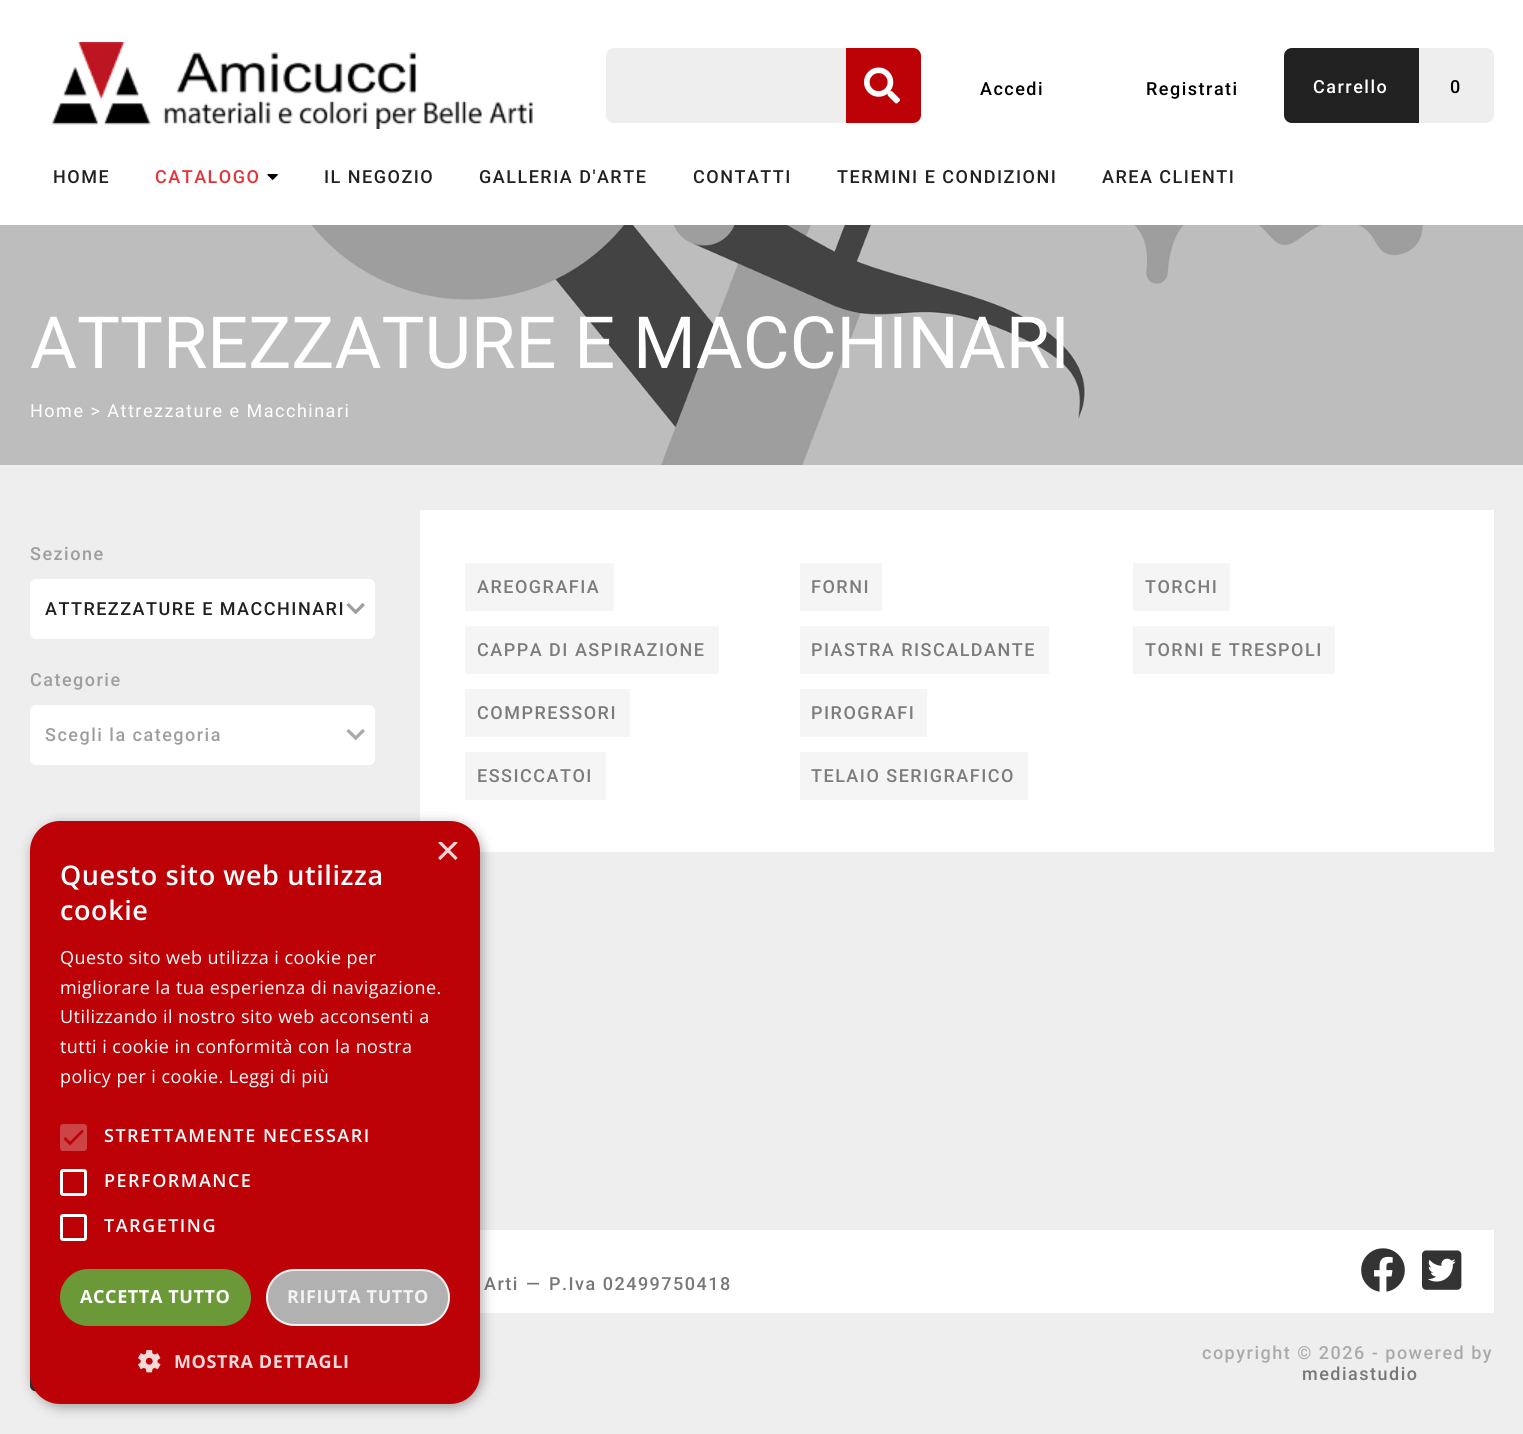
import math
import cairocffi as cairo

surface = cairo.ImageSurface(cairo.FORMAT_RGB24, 1523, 1434)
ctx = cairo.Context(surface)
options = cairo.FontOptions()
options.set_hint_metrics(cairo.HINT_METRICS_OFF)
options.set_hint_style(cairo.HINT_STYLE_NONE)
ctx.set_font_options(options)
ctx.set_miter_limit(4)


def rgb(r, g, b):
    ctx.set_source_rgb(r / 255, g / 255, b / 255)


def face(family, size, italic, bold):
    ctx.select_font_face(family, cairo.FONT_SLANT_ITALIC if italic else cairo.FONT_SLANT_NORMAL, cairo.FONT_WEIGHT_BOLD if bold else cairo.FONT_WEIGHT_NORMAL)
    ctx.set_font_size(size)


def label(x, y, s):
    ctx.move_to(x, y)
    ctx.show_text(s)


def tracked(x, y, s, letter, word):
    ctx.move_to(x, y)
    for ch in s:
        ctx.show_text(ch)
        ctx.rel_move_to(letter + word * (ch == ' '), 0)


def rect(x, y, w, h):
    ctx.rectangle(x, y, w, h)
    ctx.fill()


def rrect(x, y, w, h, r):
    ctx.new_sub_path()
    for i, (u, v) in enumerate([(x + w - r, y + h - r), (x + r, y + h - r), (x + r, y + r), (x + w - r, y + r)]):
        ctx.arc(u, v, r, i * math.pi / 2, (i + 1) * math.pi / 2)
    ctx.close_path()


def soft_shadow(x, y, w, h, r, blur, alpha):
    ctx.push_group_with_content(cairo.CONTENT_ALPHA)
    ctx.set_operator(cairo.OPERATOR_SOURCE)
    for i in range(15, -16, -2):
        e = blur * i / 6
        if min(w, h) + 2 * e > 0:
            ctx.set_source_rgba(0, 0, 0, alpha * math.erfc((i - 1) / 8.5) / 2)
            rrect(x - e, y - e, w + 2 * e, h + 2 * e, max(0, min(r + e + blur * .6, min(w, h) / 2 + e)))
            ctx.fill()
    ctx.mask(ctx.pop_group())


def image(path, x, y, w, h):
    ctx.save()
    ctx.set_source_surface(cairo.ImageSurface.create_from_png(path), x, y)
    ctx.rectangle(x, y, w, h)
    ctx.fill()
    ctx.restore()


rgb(238, 238, 238)
ctx.paint()
rgb(255, 255, 255)
rect(0, 0, 1523, 225)
image('image0.png', 52, 42, 481, 87)
rgb(238, 238, 238)
ctx.new_path()
ctx.move_to(614, 48)
ctx.line_to(846, 48)
ctx.line_to(846, 123)
ctx.line_to(614, 123)
ctx.curve_to(609.5, 123, 606, 119.5, 606, 115)
ctx.line_to(606, 56)
ctx.curve_to(606, 51.5, 609.5, 48, 614, 48)
ctx.close_path()
ctx.fill()
rgb(188, 2, 7)
ctx.new_path()
ctx.move_to(846, 48)
ctx.line_to(913, 48)
ctx.curve_to(917.5, 48, 921, 51.5, 921, 56)
ctx.line_to(921, 115)
ctx.curve_to(921, 119.5, 917.5, 123, 913, 123)
ctx.line_to(846, 123)
ctx.close_path()
ctx.fill()
image('image1.png', 864, 67, 36, 37)
face('Roboto Medium', 18, 0, 0)
rgb(0, 0, 0)
tracked(980, 95, 'Accedi', 1.5, 0)
tracked(1146, 95, 'Registrati', 1.5, 0)
rgb(238, 238, 238)
rrect(1284, 48, 210, 75, 8)
ctx.fill()
rgb(33, 33, 33)
ctx.new_path()
ctx.move_to(1292, 48)
ctx.line_to(1419, 48)
ctx.line_to(1419, 123)
ctx.line_to(1292, 123)
ctx.curve_to(1287.5, 123, 1284, 119.5, 1284, 115)
ctx.line_to(1284, 56)
ctx.curve_to(1284, 51.5, 1287.5, 48, 1292, 48)
ctx.close_path()
ctx.fill()
rgb(255, 255, 255)
tracked(1313, 93, 'Carrello', 1.5, 0)
rgb(0, 0, 0)
tracked(1450, 93, '0', 1.5, 0)
rgb(33, 33, 33)
tracked(53, 183, 'HOME', 1.5, 0)
rgb(228, 52, 57)
tracked(155, 183, 'CATALOGO', 1.5, 0)
image('image2.png', 267, 174, 11, 6)
rgb(33, 33, 33)
tracked(324, 183, 'IL NEGOZIO', 1.5, 0)
tracked(479, 183, 'GALLERIA D\'ARTE', 1.5, 0)
tracked(693, 183, 'CONTATTI', 1.5, 0)
tracked(837, 183, 'TERMINI E CONDIZIONI', 1.5, 0)
tracked(1102, 183, 'AREA CLIENTI', 1.5, 0)
image('image3.png', 0, 225, 1523, 240)
face('Roboto', 72, 0, 0)
rgb(255, 255, 255)
label(30, 368, 'ATTREZZATURE E MACCHINARI')
face('Roboto', 18, 0, 0)
tracked(30, 417, 'Home > Attrezzature e Macchinari', 1.5, 0)
face('Roboto Medium', 18, 0, 0)
rgb(158, 158, 158)
tracked(30, 560, 'Sezione', 1.5, 0)
rgb(255, 255, 255)
rrect(30, 579, 345, 60, 6)
ctx.fill()
rrect(30, 579, 315, 60, 6)
ctx.fill()
rgb(33, 33, 33)
tracked(45, 615, 'ATTREZZATURE E MACCHINARI', 1.5, 0)
image('image4.png', 346, 603, 19, 11)
rgb(158, 158, 158)
tracked(30, 686, 'Categorie', 1.5, 0)
rgb(255, 255, 255)
rrect(30, 705, 345, 60, 6)
ctx.fill()
rrect(30, 705, 315, 60, 6)
ctx.fill()
rgb(158, 158, 158)
tracked(45, 741, 'Scegli la categoria', 1.5, 0)
image('image5.png', 346, 729, 19, 11)
rgb(255, 255, 255)
rect(420, 510, 1074, 342)
rgb(245, 245, 245)
rect(465, 563, 149, 48)
rgb(125, 123, 123)
tracked(477, 593, 'AREOGRAFIA', 1.5, 0)
rgb(245, 245, 245)
rect(800, 563, 82, 48)
rgb(125, 123, 123)
tracked(811, 593, 'FORNI', 1.5, 0)
rgb(245, 245, 245)
rect(1133, 563, 97, 48)
rgb(125, 123, 123)
tracked(1145, 593, 'TORCHI', 1.5, 0)
rgb(245, 245, 245)
rect(465, 626, 254, 48)
rgb(125, 123, 123)
tracked(477, 656, 'CAPPA DI ASPIRAZIONE', 1.5, 0)
rgb(245, 245, 245)
rect(800, 626, 249, 48)
rgb(125, 123, 123)
tracked(811, 656, 'PIASTRA RISCALDANTE', 1.5, 0)
rgb(245, 245, 245)
rect(1133, 626, 202, 48)
rgb(125, 123, 123)
tracked(1145, 656, 'TORNI E TRESPOLI', 1.5, 0)
rgb(245, 245, 245)
rect(465, 689, 165, 48)
rgb(125, 123, 123)
tracked(477, 719, 'COMPRESSORI', 1.5, 0)
rgb(245, 245, 245)
rect(800, 689, 127, 48)
rgb(125, 123, 123)
tracked(811, 719, 'PIROGRAFI', 1.5, 0)
rgb(245, 245, 245)
rect(465, 752, 141, 48)
rgb(125, 123, 123)
tracked(477, 782, 'ESSICCATOI', 1.5, 0)
rgb(245, 245, 245)
rect(800, 752, 228, 48)
rgb(125, 123, 123)
tracked(811, 782, 'TELAIO SERIGRAFICO', 1.5, 0)
rgb(255, 255, 255)
rect(480, 1230, 1014, 83)
rgb(119, 119, 119)
tracked(484, 1290, 'Arti', 1.5, 0)
tracked(526, 1290, '—', 1.5, 0)
tracked(549, 1290, 'P.Iva 02499750418', 1.5, 0)
image('image6.png', 1361, 1248, 44, 44)
image('image7.png', 1422, 1250, 40, 40)
rgb(170, 170, 170)
tracked(1202, 1359, 'copyright © 2026 - powered by', 1.5, 0)
rgb(119, 119, 119)
tracked(1302, 1380, 'mediastudio', 1.5, 0)
image('image8.png', 30, 1374, 6, 18)
rgb(0, 0, 0)
soft_shadow(32, 824, 450, 583, 30, 6, 0.35)
rgb(188, 2, 7)
rrect(30, 821, 450, 583, 30)
ctx.fill()
ctx.save()
ctx.rectangle(435, 842, 23, 22)
ctx.clip()
face('Liberation Sans', 44, 0, 0)
rgb(245, 217, 218)
label(435, 865, '×')
ctx.restore()
face('Open Sans SemiBold', 27, 0, 0)
rgb(255, 255, 255)
tracked(60, 885, 'Questo sito web utilizza', 0.6, 0)
tracked(60, 920, 'cookie', 0.6, 0)
face('Open Sans', 18, 0, 0)
tracked(60, 964, 'Questo sito web utilizza i cookie per', 0.45, 0)
tracked(60, 994, 'migliorare la tua esperienza di navigazione.', 0.45, 0)
tracked(60, 1023, 'Utilizzando il nostro sito web acconsenti a', 0.45, 0)
tracked(60, 1053, 'tutti i cookie in conformità con la nostra', 0.45, 0)
tracked(60, 1083, 'policy per i cookie. Leggi di più', 0.45, 0)
rgb(205, 68, 71)
rrect(60, 1124, 27, 27, 3)
ctx.fill()
ctx.new_path()
ctx.move_to(64.5, 1138)
ctx.line_to(70, 1143.5)
ctx.line_to(83, 1130.5)
rgb(188, 2, 7)
ctx.set_line_width(2.7)
ctx.stroke()
face('Open Sans SemiBold', 18, 0, 0)
rgb(255, 255, 255)
tracked(104, 1142, 'STRETTAMENTE NECESSARI', 1.5, 0)
rrect(61.5, 1170.5, 24, 24, 1.5)
ctx.set_line_width(3)
ctx.stroke()
tracked(104, 1187, 'PERFORMANCE', 1.5, 0)
rrect(61.5, 1215.5, 24, 24, 1.5)
ctx.stroke()
tracked(104, 1232, 'TARGETING', 1.5, 0)
rgb(108, 153, 56)
rrect(60, 1269, 191, 57, 28.5)
ctx.fill()
face('Open Sans', 18, 0, 1)
rgb(255, 255, 255)
tracked(80, 1303, 'ACCETTA TUTTO', 0.6, 0)
rgb(177, 177, 177)
rrect(267, 1270, 182, 55, 27.5)
ctx.fill_preserve()
rgb(243, 243, 243)
ctx.set_line_width(2)
ctx.stroke()
tracked(287, 1303, 'RIFIUTA TUTTO', 0.6, 0)
image('image9.png', 138, 1350, 23, 23)
rgb(245, 217, 218)
tracked(174, 1368, 'MOSTRA DETTAGLI', 0.6, 0)
surface.write_to_png('render.png')
